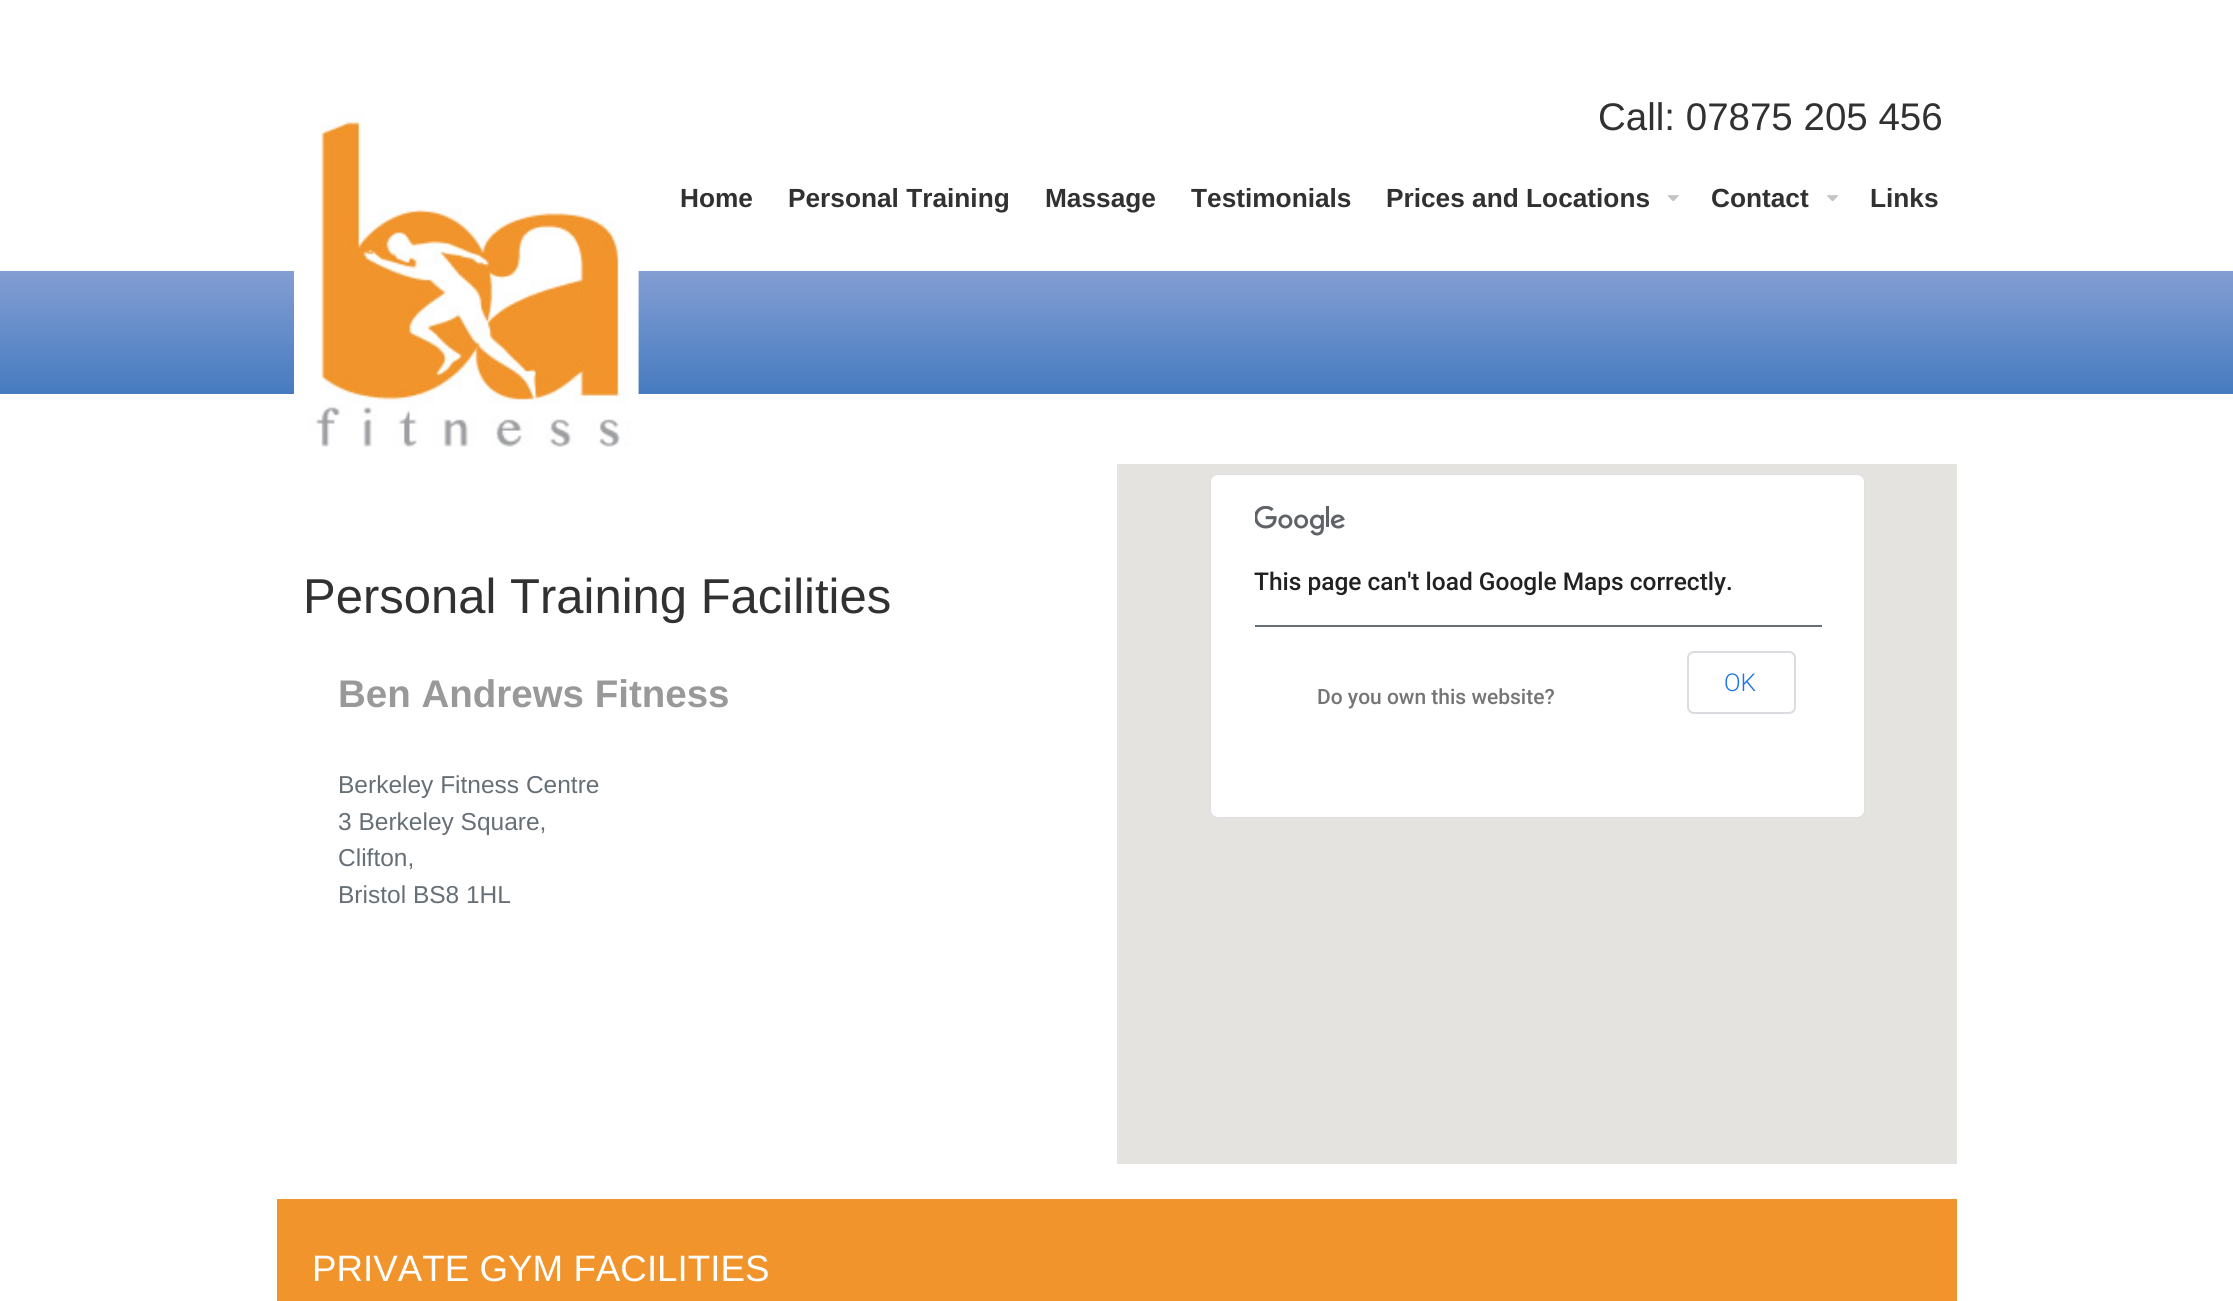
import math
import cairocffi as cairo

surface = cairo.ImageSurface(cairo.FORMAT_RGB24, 2233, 1301)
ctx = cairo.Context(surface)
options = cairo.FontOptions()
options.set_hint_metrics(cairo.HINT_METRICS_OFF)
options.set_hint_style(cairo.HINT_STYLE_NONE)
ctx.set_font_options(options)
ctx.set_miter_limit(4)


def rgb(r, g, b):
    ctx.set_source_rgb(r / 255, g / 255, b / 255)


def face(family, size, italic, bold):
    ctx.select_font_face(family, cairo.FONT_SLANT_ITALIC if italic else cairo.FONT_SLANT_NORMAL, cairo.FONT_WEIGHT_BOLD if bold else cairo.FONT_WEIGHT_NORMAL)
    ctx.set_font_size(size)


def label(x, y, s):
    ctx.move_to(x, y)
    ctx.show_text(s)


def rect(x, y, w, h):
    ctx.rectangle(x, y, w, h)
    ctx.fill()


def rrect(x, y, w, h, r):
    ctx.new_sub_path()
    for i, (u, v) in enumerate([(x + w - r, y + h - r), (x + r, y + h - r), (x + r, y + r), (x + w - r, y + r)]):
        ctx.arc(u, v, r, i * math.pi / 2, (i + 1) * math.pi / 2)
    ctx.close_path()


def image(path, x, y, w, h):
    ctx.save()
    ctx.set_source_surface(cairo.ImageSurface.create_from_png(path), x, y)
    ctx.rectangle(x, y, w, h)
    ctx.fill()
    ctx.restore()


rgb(255, 255, 255)
ctx.paint()
face('Liberation Sans', 38.5, 0, 0)
rgb(49, 49, 49)
label(1598, 130, 'Call: 07875 205 456')
gradient = cairo.LinearGradient(1117, 271, 1117, 394)
gradient.add_color_stop_rgba(0, 0.514, 0.62, 0.827, 1)
gradient.add_color_stop_rgba(1, 0.275, 0.482, 0.753, 1)
ctx.set_source(gradient)
rect(0, 271, 2233, 123)
image('image0.png', 294, 113, 345, 334)
face('Liberation Sans', 26.25, 0, 1)
rgb(49, 49, 49)
label(680, 207, 'Home')
label(788, 207, 'Personal Training')
label(1045, 207, 'Massage')
label(1191, 207, 'Testimonials')
label(1386, 207, 'Prices and Locations')
image('image1.png', 1667, 195, 12, 7)
label(1711, 207, 'Contact')
image('image2.png', 1827, 195, 11, 7)
label(1870, 207, 'Links')
face('Liberation Sans', 49, 0, 0)
label(303, 613, 'Personal Training Facilities')
face('Liberation Sans', 38.5, 0, 1)
rgb(153, 153, 153)
label(338, 707, 'Ben Andrews Fitness')
face('Liberation Sans', 24.5, 0, 0)
rgb(103, 111, 118)
label(338, 793, 'Berkeley Fitness Centre')
label(338, 830, '3 Berkeley Square,')
label(338, 866, 'Clifton,')
label(338, 903, 'Bristol BS8 1HL')
rgb(229, 227, 223)
rect(1117, 464, 840, 700)
rgb(255, 255, 255)
rrect(1209, 473, 657, 346, 9)
ctx.fill()
rrect(1210, 474, 655, 344, 8)
ctx.set_source_rgba(0, 0, 0, 0.12)
ctx.stroke()
image('image3.png', 1255, 506, 90, 30)
face('Roboto Medium', 24.5, 0, 0)
rgb(33, 33, 33)
label(1254, 590, 'This page can\'t load Google Maps correctly.')
rgb(103, 111, 118)
rect(1255, 625, 567, 2)
rrect(1688, 652, 107, 61, 6)
rgb(218, 220, 224)
ctx.stroke()
face('Roboto Light', 24.5, 0, 0)
rgb(26, 115, 232)
label(1724, 691, 'OK')
face('Roboto Medium', 21, 0, 0)
rgb(117, 117, 117)
label(1317, 704, 'Do you own this website?')
rgb(240, 148, 43)
rect(277, 1199, 1680, 102)
face('Liberation Sans', 36.75, 0, 0)
rgb(255, 255, 255)
label(312, 1281, 'PRIVATE GYM FACILITIES')
surface.write_to_png('render.png')
